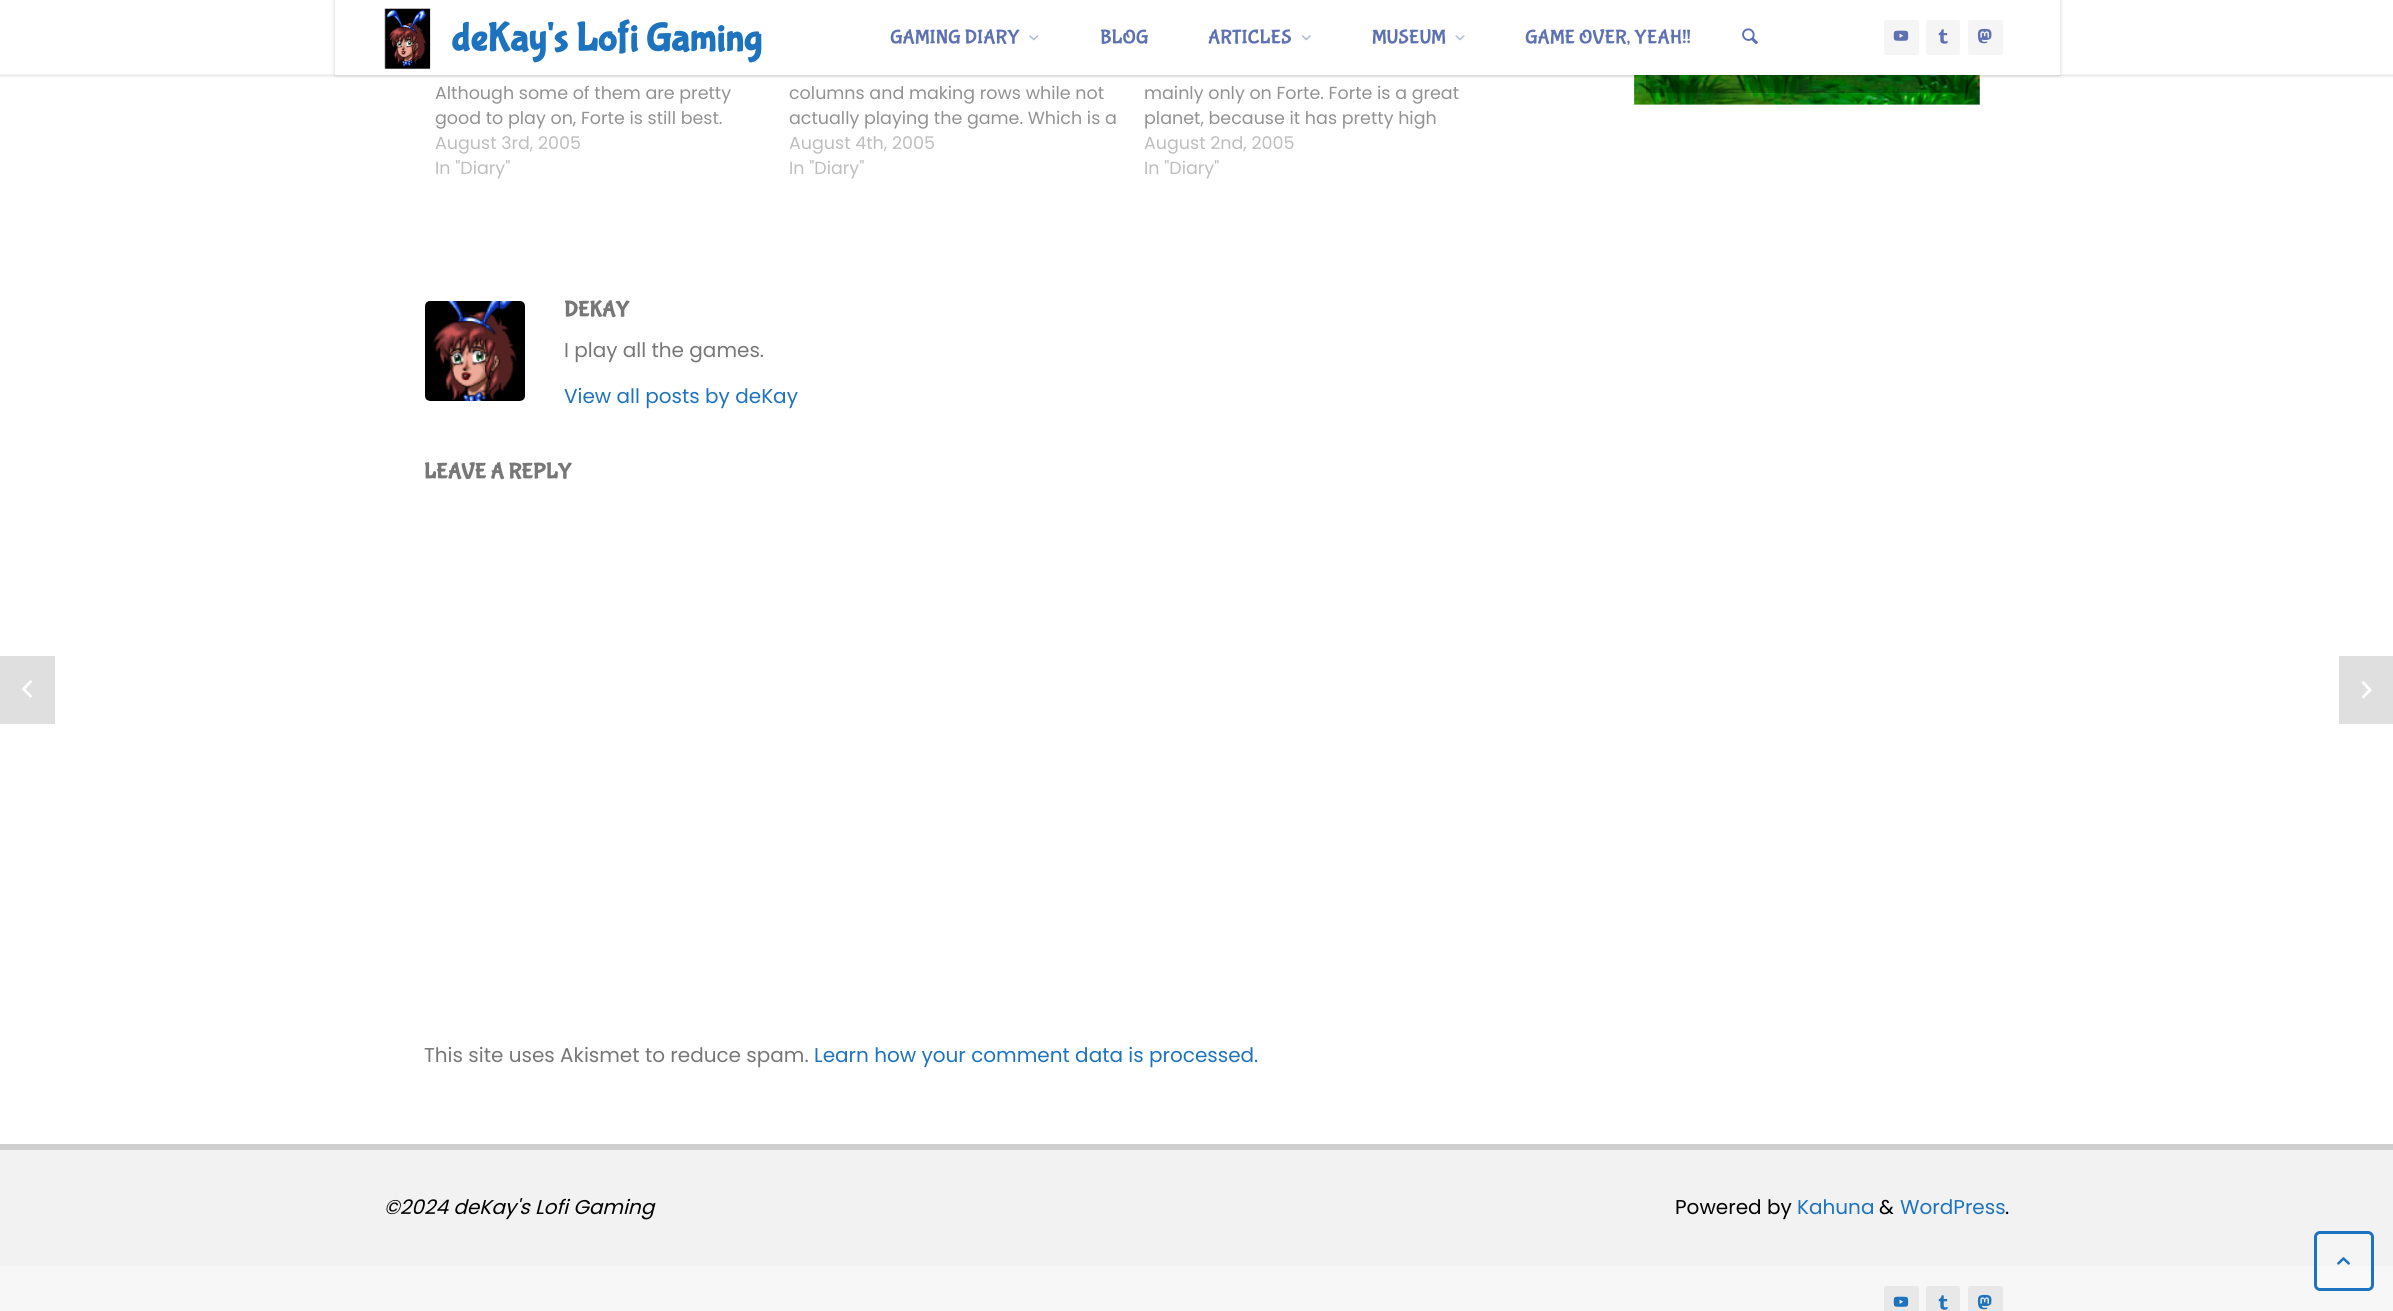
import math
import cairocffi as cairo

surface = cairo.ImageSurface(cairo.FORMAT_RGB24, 2393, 1311)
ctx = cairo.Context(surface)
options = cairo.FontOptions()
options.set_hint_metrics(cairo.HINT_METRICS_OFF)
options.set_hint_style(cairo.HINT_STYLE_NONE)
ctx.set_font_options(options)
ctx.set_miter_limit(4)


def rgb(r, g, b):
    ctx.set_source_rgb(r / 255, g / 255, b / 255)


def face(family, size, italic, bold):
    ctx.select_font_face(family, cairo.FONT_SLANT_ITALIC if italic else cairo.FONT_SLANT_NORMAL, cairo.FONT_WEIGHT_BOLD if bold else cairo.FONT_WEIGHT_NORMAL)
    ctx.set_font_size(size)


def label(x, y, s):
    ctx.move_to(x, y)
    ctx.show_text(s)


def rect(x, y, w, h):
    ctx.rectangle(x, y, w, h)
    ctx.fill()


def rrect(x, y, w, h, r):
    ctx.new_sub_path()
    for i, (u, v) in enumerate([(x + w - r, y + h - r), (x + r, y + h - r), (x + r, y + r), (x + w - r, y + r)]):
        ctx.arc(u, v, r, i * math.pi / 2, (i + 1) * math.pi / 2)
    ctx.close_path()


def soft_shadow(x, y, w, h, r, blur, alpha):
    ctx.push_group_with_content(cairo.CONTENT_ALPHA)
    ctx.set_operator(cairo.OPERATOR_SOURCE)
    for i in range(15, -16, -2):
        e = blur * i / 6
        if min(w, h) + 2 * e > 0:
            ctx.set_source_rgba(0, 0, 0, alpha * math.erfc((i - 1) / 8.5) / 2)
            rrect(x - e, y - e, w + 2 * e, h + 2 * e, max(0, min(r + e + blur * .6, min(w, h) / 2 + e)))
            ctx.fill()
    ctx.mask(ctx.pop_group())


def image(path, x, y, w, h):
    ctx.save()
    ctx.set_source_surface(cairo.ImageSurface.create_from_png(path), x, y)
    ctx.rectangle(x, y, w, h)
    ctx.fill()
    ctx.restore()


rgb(255, 255, 255)
ctx.paint()
image('image9.png', 1634, 75, 346, 30)
ctx.set_source_rgba(0, 0, 0, 0.24)
rect(1646, 75, 322, 18)
rgb(0, 0, 0)
soft_shadow(0, 0, 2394, 75, 0, 2, 0.2)
rgb(255, 255, 255)
rect(0, 0, 2393, 74)
rgb(242, 242, 242)
rect(0, 74, 2393, 1)
rgb(0, 0, 0)
soft_shadow(335, 0, 1725, 75, 0, 2, 0.2)
rgb(255, 255, 255)
rect(335, 0, 1725, 75)
image('image0.png', 384, 8, 47, 61)
face('Bubblegum Sans', 40, 0, 1)
rgb(30, 115, 190)
label(451, 50, 'deKay\'s Lofi Gaming')
face('Bubblegum Sans', 20, 0, 0)
rgb(93, 113, 179)
label(890, 43, 'GAMING DIARY')
image('image1.png', 1029, 35, 10, 6)
label(1100, 43, 'BLOG')
label(1208, 43, 'ARTICLES')
image('image2.png', 1301, 35, 10, 6)
label(1372, 43, 'MUSEUM')
image('image3.png', 1455, 35, 10, 6)
label(1525, 43, 'GAME OVER, YEAH!!')
image('image4.png', 1742, 28, 16, 17)
rgb(245, 245, 245)
rrect(1884, 20, 35, 35, 2.5)
ctx.fill()
image('image5.png', 1893, 30, 16, 11)
rrect(1926, 20, 34, 35, 2.5)
ctx.fill()
image('image6.png', 1938, 29, 10, 15)
rrect(1968, 20, 35, 35, 2.5)
ctx.fill()
image('image7.png', 1977, 28, 15, 16)
face('Poppins', 17.5, 0, 0)
rgb(146, 146, 146)
label(435, 99, 'Although some of them are pretty')
label(435, 124, 'good to play on, Forte is still best.')
rgb(190, 190, 190)
label(435, 149, 'August 3rd, 2005')
label(435, 174, 'In "Diary"')
rgb(146, 146, 146)
label(789, 99, 'columns and making rows while not')
label(789, 124, 'actually playing the game. Which is a')
rgb(190, 190, 190)
label(789, 149, 'August 4th, 2005')
label(789, 174, 'In "Diary"')
rgb(146, 146, 146)
label(1144, 99, 'mainly only on Forte. Forte is a great')
label(1144, 124, 'planet, because it has pretty high')
rgb(190, 190, 190)
label(1144, 149, 'August 2nd, 2005')
label(1144, 174, 'In "Diary"')
image('image8.png', 425, 301, 100, 100)
face('Bubblegum Sans', 22, 0, 1)
rgb(119, 119, 119)
label(564, 316, 'DEKAY')
face('Poppins', 20, 0, 0)
label(564, 357, 'I play all the games.')
rgb(30, 115, 190)
label(564, 403, 'View all posts by deKay')
face('Bubblegum Sans', 22, 0, 1)
rgb(119, 119, 119)
label(424, 478, 'LEAVE A REPLY')
face('Poppins', 20, 0, 0)
label(424, 1062, 'This site uses Akismet to reduce spam.')
rgb(30, 115, 190)
label(814, 1062, 'Learn how your comment data is processed.')
rgb(223, 223, 223)
rect(0, 656, 55, 68)
image('image10.png', 22, 680, 10, 18)
rect(2339, 656, 54, 68)
image('image11.png', 2362, 681, 10, 18)
rgb(207, 207, 207)
rect(0, 1144, 2393, 6)
rgb(242, 242, 242)
rect(0, 1150, 2393, 116)
face('Poppins', 20, 1, 0)
rgb(0, 0, 0)
label(384, 1214, '©2024 deKay\'s Lofi Gaming')
face('Poppins', 20, 0, 0)
label(1675, 1214, 'Powered by')
rgb(30, 115, 190)
label(1797, 1214, 'Kahuna')
rgb(0, 0, 0)
label(1879, 1214, '&')
rgb(30, 115, 190)
label(1900, 1214, 'WordPress')
rgb(0, 0, 0)
label(2005, 1214, '.')
rgb(247, 247, 247)
rect(0, 1266, 2393, 45)
ctx.set_source_rgba(1, 1, 1, 0.25)
rrect(2315.5, 1232.5, 57, 57, 4.5)
ctx.fill_preserve()
rgb(30, 115, 190)
ctx.set_line_width(3)
ctx.stroke()
image('image12.png', 2337, 1257, 13, 8)
rgb(232, 232, 232)
rrect(1884, 1286, 35, 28, 2.5)
ctx.fill()
image('image13.png', 1893, 1296, 16, 11)
rrect(1926, 1286, 34, 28, 2.5)
ctx.fill()
image('image14.png', 1938, 1295, 10, 15)
rrect(1968, 1286, 35, 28, 2.5)
ctx.fill()
image('image15.png', 1977, 1294, 15, 16)
surface.write_to_png('render.png')
